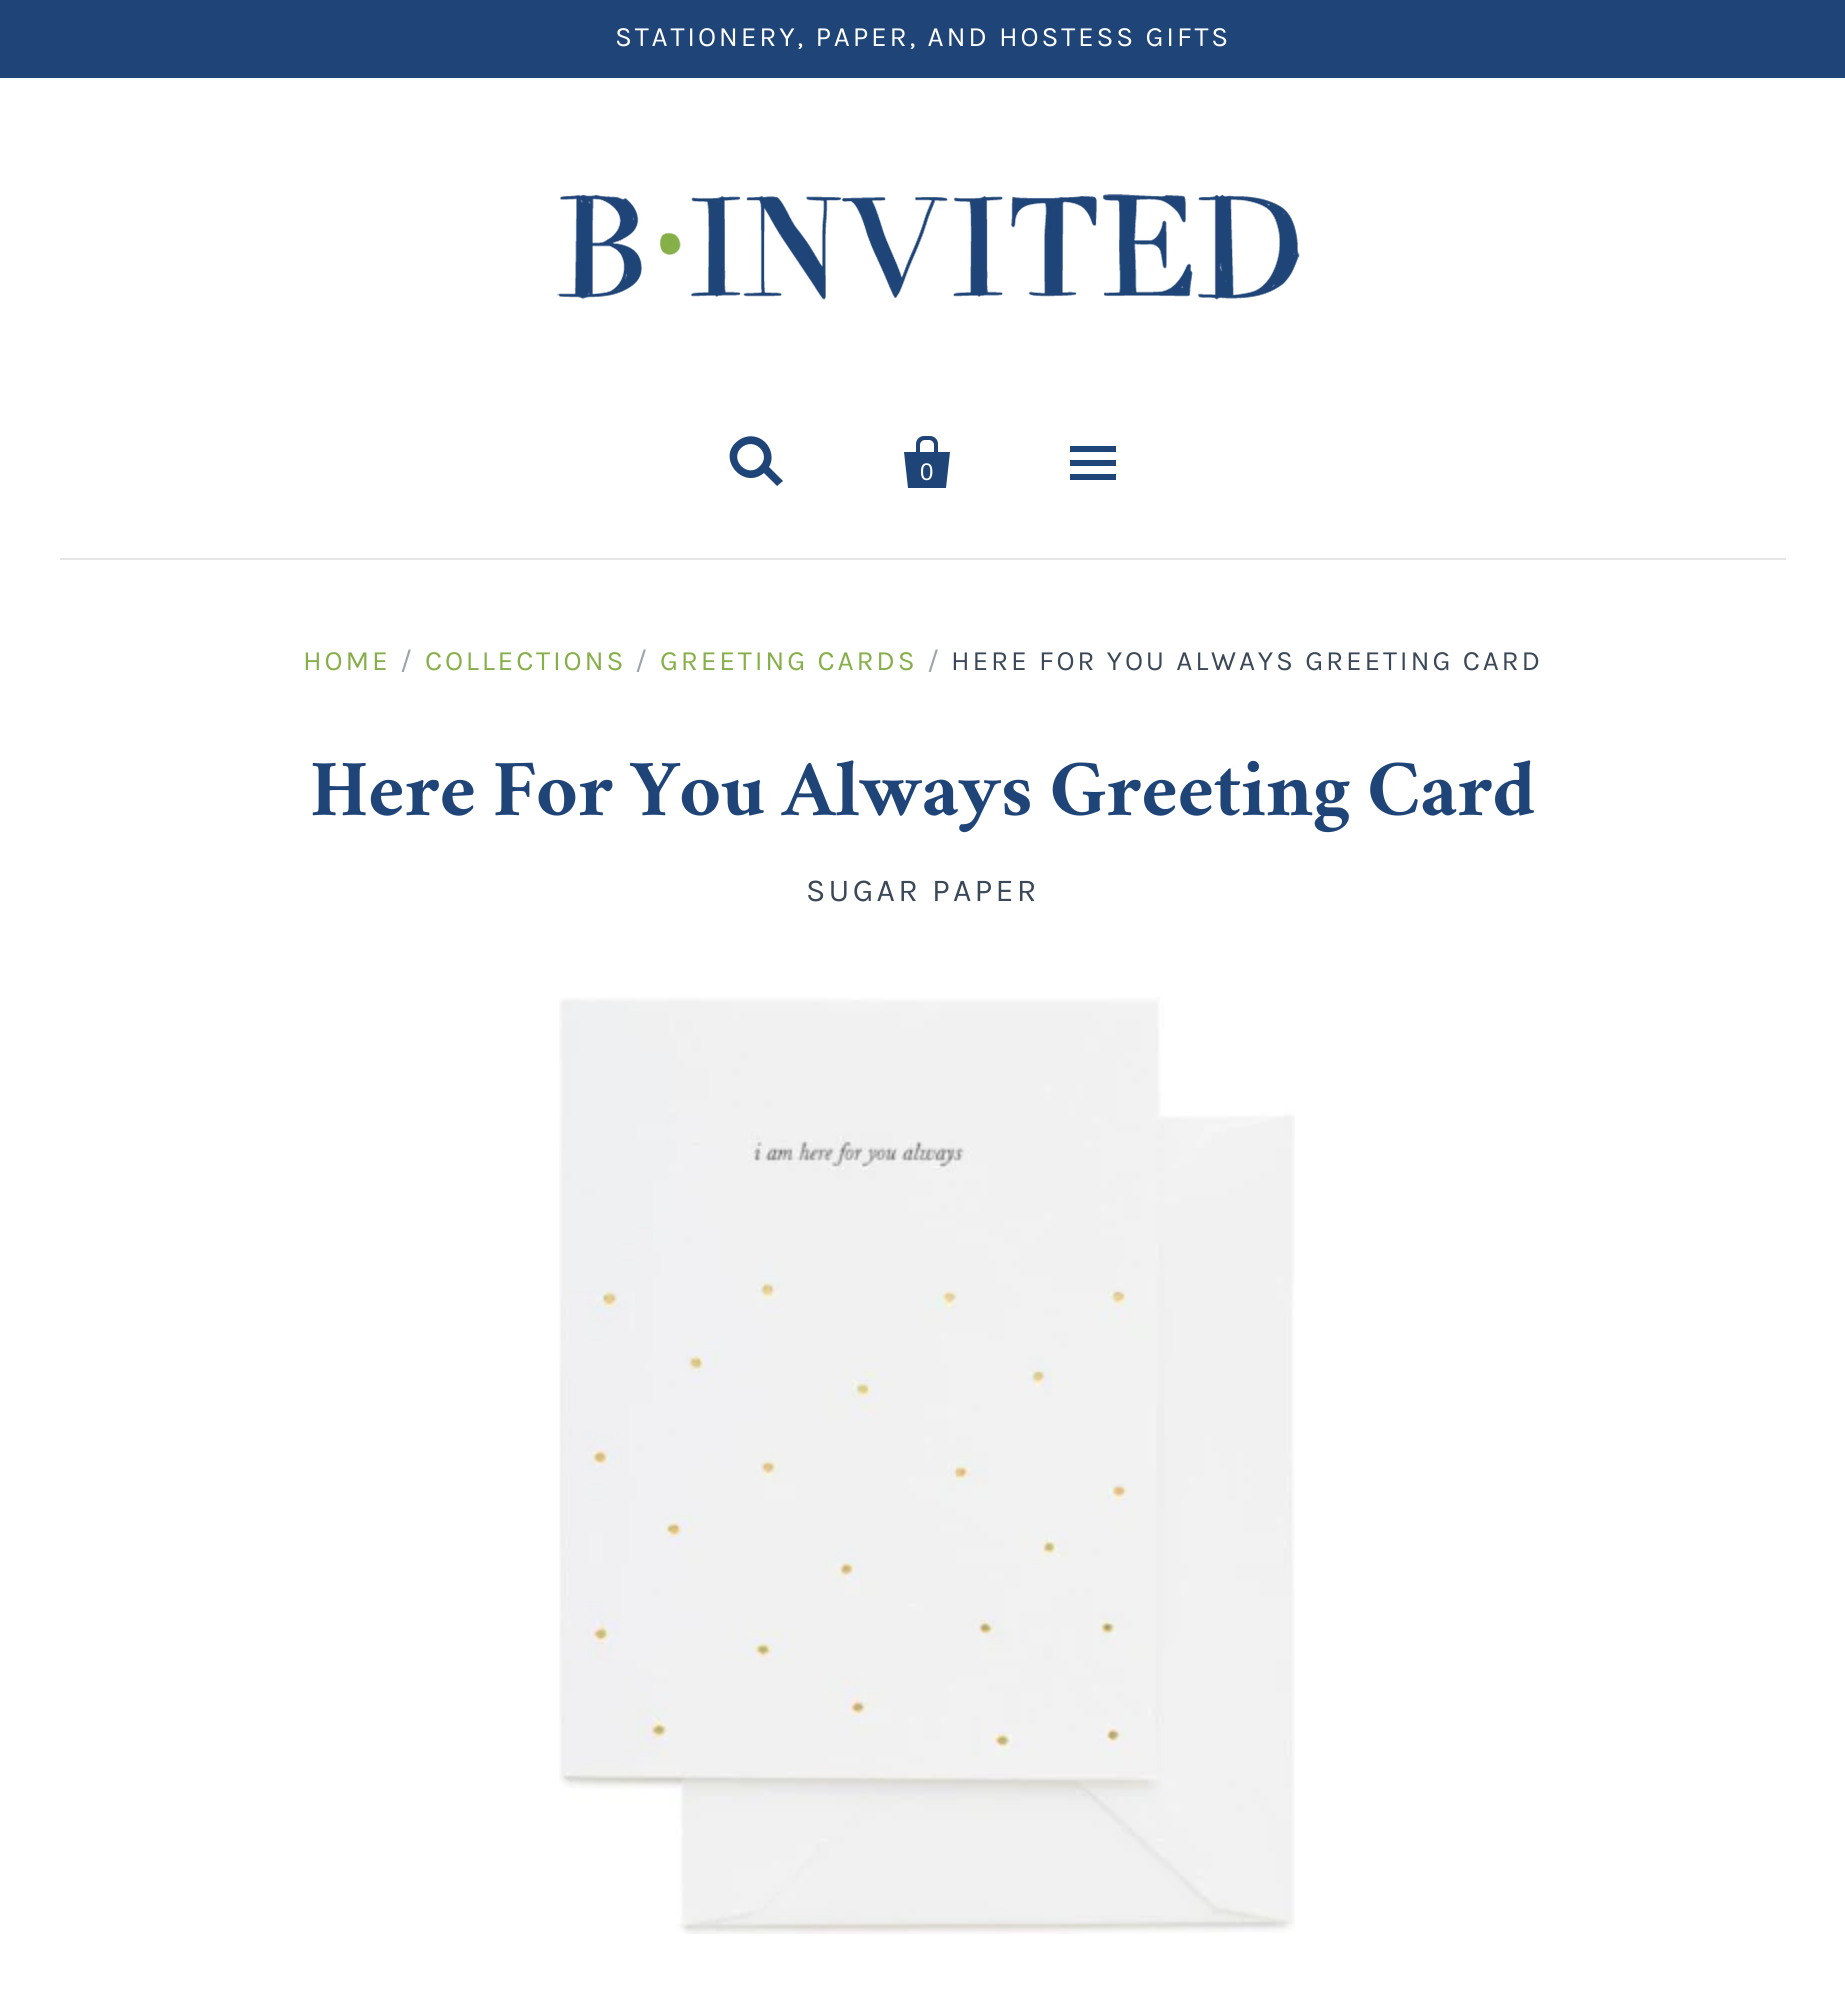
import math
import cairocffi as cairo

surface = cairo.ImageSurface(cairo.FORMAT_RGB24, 1845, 1995)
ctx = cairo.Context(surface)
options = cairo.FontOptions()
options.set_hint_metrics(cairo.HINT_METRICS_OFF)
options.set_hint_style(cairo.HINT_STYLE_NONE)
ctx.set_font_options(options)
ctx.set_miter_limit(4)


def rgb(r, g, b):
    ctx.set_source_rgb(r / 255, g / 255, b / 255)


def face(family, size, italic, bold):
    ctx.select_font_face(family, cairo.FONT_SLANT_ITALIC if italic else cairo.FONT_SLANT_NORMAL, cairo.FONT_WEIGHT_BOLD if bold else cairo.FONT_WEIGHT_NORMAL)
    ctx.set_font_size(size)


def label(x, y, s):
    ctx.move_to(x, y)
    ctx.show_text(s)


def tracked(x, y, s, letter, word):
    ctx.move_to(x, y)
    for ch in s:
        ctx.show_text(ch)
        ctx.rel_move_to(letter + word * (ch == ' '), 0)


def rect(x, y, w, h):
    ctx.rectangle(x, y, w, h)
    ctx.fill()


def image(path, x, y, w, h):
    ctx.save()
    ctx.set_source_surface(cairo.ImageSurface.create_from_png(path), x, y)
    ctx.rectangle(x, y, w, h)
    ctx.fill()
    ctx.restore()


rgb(255, 255, 255)
ctx.paint()
rgb(31, 68, 120)
rect(0, 0, 1845, 78)
face('Karla', 28, 0, 0)
rgb(255, 255, 255)
tracked(615, 46, 'STATIONERY, PAPER, AND HOSTESS GIFTS', 2.8, 0)
rgb(229, 229, 229)
rect(60, 558, 1726, 2)
image('image0.png', 557, 193, 743, 107)
rgb(31, 68, 120)
ctx.new_path()
ctx.move_to(769, 467)
ctx.curve_to(775, 457, 770, 443, 759, 438)
ctx.curve_to(752, 435, 745, 436, 739, 440)
ctx.curve_to(715, 456, 742, 491, 764, 473)
ctx.line_to(777, 486)
ctx.line_to(783, 481)
ctx.close_path()
ctx.move_to(760, 466)
ctx.curve_to(748, 479, 729, 460, 741, 448)
ctx.curve_to(754, 436, 772, 454, 760, 466)
ctx.close_path()
ctx.fill()
image('image1.png', 904, 436, 46, 52)
face('Liberation Sans', 24, 0, 0)
rgb(255, 255, 255)
label(920, 480, '0')
rgb(31, 68, 120)
rect(1070, 460, 46, 6)
rect(1070, 446, 46, 6)
rect(1070, 474, 46, 6)
face('Karla', 28, 0, 0)
rgb(134, 175, 73)
tracked(303, 670, 'HOME', 2.8, 0)
rgb(157, 163, 171)
tracked(400, 670, '/', 2.8, 0)
rgb(134, 175, 73)
tracked(425, 670, 'COLLECTIONS', 2.8, 0)
rgb(157, 163, 171)
tracked(635, 670, '/', 2.8, 0)
rgb(134, 175, 73)
tracked(660, 670, 'GREETING CARDS', 2.8, 0)
rgb(157, 163, 171)
tracked(927, 670, '/', 2.8, 0)
rgb(59, 72, 88)
tracked(951, 670, 'HERE FOR YOU ALWAYS GREETING CARD', 2.8, 0)
face('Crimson', 72, 0, 1)
rgb(31, 68, 120)
label(310, 815, 'Here For You Always Greeting Card')
face('Karla', 32, 0, 0)
rgb(59, 72, 88)
tracked(806, 901, 'SUGAR PAPER', 3.25, 0)
image('image2.png', 559, 997, 736, 937)
surface.write_to_png('render.png')
